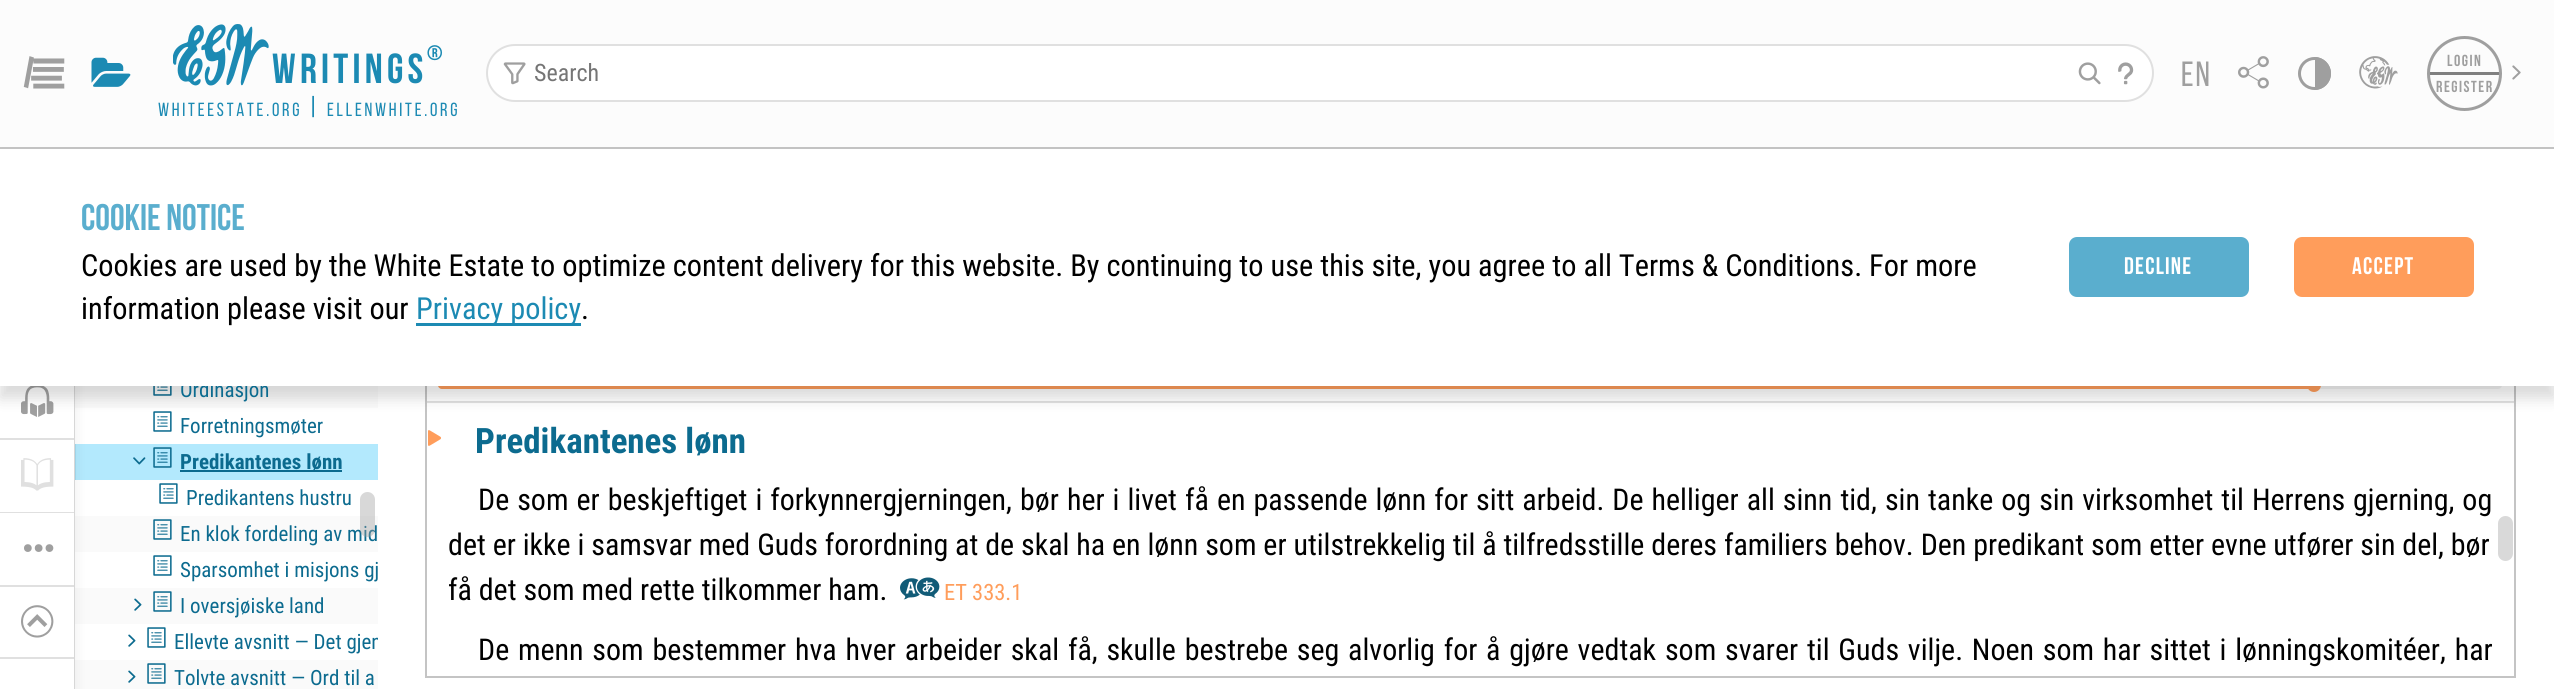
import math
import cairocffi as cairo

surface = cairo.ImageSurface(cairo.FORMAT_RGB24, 2554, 689)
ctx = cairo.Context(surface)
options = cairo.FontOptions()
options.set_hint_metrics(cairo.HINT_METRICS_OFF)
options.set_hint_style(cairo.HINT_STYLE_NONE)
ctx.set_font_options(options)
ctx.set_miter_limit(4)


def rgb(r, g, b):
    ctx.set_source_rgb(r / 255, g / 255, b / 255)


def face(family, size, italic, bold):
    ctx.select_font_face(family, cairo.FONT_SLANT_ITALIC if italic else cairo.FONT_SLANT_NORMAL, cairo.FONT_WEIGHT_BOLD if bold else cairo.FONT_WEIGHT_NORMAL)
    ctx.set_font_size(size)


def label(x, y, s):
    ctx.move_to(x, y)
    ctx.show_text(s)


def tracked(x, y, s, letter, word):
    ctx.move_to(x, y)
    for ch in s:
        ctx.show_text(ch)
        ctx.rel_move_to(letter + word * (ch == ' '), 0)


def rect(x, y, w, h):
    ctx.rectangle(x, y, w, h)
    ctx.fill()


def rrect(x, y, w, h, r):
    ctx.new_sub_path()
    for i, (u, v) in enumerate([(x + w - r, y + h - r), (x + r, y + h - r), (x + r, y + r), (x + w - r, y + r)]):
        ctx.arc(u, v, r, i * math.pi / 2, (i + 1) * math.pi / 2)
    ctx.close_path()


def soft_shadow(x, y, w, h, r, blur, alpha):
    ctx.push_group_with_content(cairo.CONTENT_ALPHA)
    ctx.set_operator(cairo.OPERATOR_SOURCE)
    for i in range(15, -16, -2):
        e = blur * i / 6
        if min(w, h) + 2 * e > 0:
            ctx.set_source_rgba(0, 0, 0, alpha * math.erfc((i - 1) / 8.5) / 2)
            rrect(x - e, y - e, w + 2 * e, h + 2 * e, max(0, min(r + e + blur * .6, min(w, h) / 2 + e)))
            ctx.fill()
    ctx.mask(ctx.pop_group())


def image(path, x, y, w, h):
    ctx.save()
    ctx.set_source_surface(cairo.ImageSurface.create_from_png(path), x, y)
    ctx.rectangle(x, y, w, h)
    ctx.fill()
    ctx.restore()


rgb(255, 255, 255)
ctx.paint()
rgb(179, 233, 253)
rect(76, 444, 302, 36)
rgb(224, 224, 224)
rect(74, 386, 1, 303)
rgb(164, 218, 238)
rect(75, 444, 1, 36)
rgb(250, 250, 250)
rect(75, 386, 303, 22)
rect(75, 516, 303, 36)
rect(75, 588, 303, 36)
rect(75, 660, 303, 29)
rgb(0, 0, 0)
soft_shadow(0, 152, 74, 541, 0, 7.5, 0.08)
rgb(252, 252, 252)
rect(0, 0, 2554, 147)
rgb(196, 196, 196)
rect(0, 147, 2554, 2)
image('image0.png', 23, 56, 42, 33)
image('image1.png', 91, 57, 40, 30)
image('image2.png', 173, 24, 96, 62)
face('Bebas Neue', 42, 0, 1)
rgb(28, 138, 179)
tracked(272, 83, 'writings', 4.25, 0)
face('Bebas Neue', 21, 0, 1)
tracked(427, 60, '®', 2, 0)
face('Bebas Neue', 19, 0, 0)
tracked(158, 116, 'whiteestate.org', 2.75, 0)
face('Bebas Neue', 27, 0, 0)
tracked(308, 116, '|', 2.75, 0)
face('Bebas Neue', 19, 0, 0)
tracked(327, 116, 'ellenwhite.org', 2.75, 0)
rgb(255, 255, 255)
rrect(487, 45, 1666, 56, 28)
ctx.fill_preserve()
rgb(224, 224, 224)
ctx.stroke()
image('image3.png', 503, 62, 23, 23)
face('Roboto Condensed', 24, 0, 0)
rgb(117, 117, 117)
label(534, 81, 'Search')
image('image4.png', 2078, 62, 23, 23)
image('image5.png', 2118, 62, 16, 23)
face('Bebas Neue', 35, 0, 0)
rgb(159, 159, 159)
tracked(2181, 86, 'en', 2, 0)
image('image6.png', 2238, 56, 31, 33)
ctx.arc(2314.5, 73.5, 15, 0, 2 * math.pi)
ctx.set_line_width(3)
ctx.stroke()
ctx.save()
rrect(2298, 57, 33, 33, 16.5)
ctx.clip()
rect(2315, 57, 16, 33)
ctx.restore()
image('image7.png', 2359, 56, 39, 33)
rgb(128, 128, 128)
rect(2430, 72, 69, 3)
ctx.arc(2464.5, 73.5, 36, 0, 2 * math.pi)
rgb(159, 159, 159)
ctx.stroke()
face('Bebas Neue', 16, 0, 1)
tracked(2447, 66, 'logIn', 1.5, 0)
tracked(2436, 92, 'Register', 1.5, 0)
image('image8.png', 2512, 65, 9, 15)
rgb(255, 255, 255)
rect(0, 386, 74, 303)
image('image9.png', 21, 386, 33, 31)
image('image13.png', 153, 386, 19, 10)
image('image14.png', 153, 411, 19, 21)
rgb(224, 224, 224)
rect(425, 401, 2091, 2)
rgb(241, 241, 241)
rrect(438, 381, 2064, 8, 4)
ctx.fill()
rgb(255, 157, 91)
rrect(438, 381, 1875, 8, 4)
ctx.fill()
ctx.arc(2314, 385, 7, 0, 2 * math.pi)
ctx.fill()
image('image20.png', 428, 430, 13, 16)
image('image21.png', 900, 577, 40, 23)
rgb(217, 217, 217)
rrect(2498, 516, 15, 45, 7.5)
ctx.fill()
ctx.rectangle(426, 270, 2089, 407)
rgb(196, 196, 196)
ctx.set_line_width(2)
ctx.stroke()
rgb(0, 0, 0)
soft_shadow(0, 161, 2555, 237, 0, 7.5, 0.15)
face('Roboto Condensed', 21, 0, 0)
rgb(12, 107, 143)
label(180, 397, 'Ordinasjon')
rgb(255, 255, 255)
rect(0, 149, 2554, 237)
face('Bebas Neue', 37, 0, 1)
rgb(90, 174, 206)
label(81, 230, 'Cookie Notice')
face('Roboto Condensed', 30.38, 0, 0)
rgb(0, 0, 0)
label(81, 276, 'Cookies are used by the White Estate to optimize content delivery for this website. By continuing to use this site, you agree to all Terms & Conditions. For more')
label(81, 319, 'information please visit our')
rgb(28, 138, 179)
rect(416, 323, 165, 3)
label(416, 319, 'Privacy policy')
rgb(0, 0, 0)
label(581, 319, '.')
rgb(90, 174, 206)
rrect(2070, 238, 178, 58, 7)
ctx.fill_preserve()
ctx.stroke()
face('Bebas Neue', 24, 0, 1)
rgb(255, 255, 255)
tracked(2124, 274, 'Decline', 1.25, 0)
rgb(255, 157, 91)
rrect(2295, 238, 178, 58, 7)
ctx.fill_preserve()
ctx.stroke()
rgb(255, 255, 255)
tracked(2352, 274, 'Accept', 1.25, 0)
rgb(224, 224, 224)
rect(0, 438, 74, 2)
rect(0, 512, 74, 1)
image('image10.png', 21, 458, 33, 33)
rect(0, 585, 74, 2)
image('image11.png', 24, 544, 30, 8)
rect(0, 657, 74, 2)
image('image12.png', 21, 605, 33, 33)
face('Roboto Condensed', 21, 0, 0)
rgb(12, 107, 143)
label(180, 433, 'Forretningsmøter')
image('image15.png', 133, 457, 13, 8)
image('image16.png', 153, 447, 19, 21)
rect(180, 470, 162, 2)
face('Roboto Condensed', 21, 0, 1)
label(180, 469, 'Predikantenes lønn')
image('image14.png', 159, 483, 19, 21)
face('Roboto Condensed', 21, 0, 0)
label(186, 505, 'Predikantens hustru')
image('image17.png', 153, 519, 19, 21)
label(180, 541, 'En klok fordeling av mid')
image('image14.png', 153, 555, 19, 21)
label(180, 577, 'Sparsomhet i misjons gj')
image('image18.png', 134, 598, 8, 13)
image('image17.png', 153, 591, 19, 21)
label(180, 613, 'I oversjøiske land')
image('image19.png', 128, 634, 8, 13)
image('image14.png', 147, 627, 19, 21)
ctx.save()
ctx.rectangle(75, 624, 303, 36)
ctx.clip()
label(174, 649, 'Ellevte avsnitt — Det gjen')
ctx.restore()
image('image18.png', 128, 670, 8, 13)
image('image17.png', 147, 663, 19, 21)
label(174, 685, 'Tolvte avsnitt — Ord til a')
ctx.set_source_rgba(0.624, 0.624, 0.624, 0.4)
rrect(360, 492, 15, 45, 7.5)
ctx.fill()
face('Roboto Condensed', 35, 0, 1)
rgb(12, 107, 143)
label(475, 453, 'Predikantenes lønn')
face('Roboto Condensed', 30, 0, 0)
rgb(0, 0, 0)
tracked(478, 510, 'De som er beskjeftiget i forkynnergjerningen, bør her i livet få en passende lønn for sitt arbeid. De helliger all sinn tid, sin tanke og sin virksomhet til Herrens gjerning, og', 0, 1.15)
label(448, 555, 'det er ikke i samsvar med Guds forordning at de skal ha en lønn som er utilstrekkelig til å tilfredsstille deres familiers behov. Den predikant som etter evne utfører sin del, bør')
label(448, 600, 'få det som med rette tilkommer ham.')
face('Roboto Condensed', 22.5, 0, 0)
rgb(255, 157, 91)
label(944, 600, 'ET 333.1')
face('Roboto Condensed', 30, 0, 0)
rgb(0, 0, 0)
tracked(478, 660, 'De menn som bestemmer hva hver arbeider skal få, skulle bestrebe seg alvorlig for å gjøre vedtak som svarer til Guds vilje. Noen som har sittet i lønningskomitéer, har', 0, 1.9)
surface.write_to_png('render.png')
